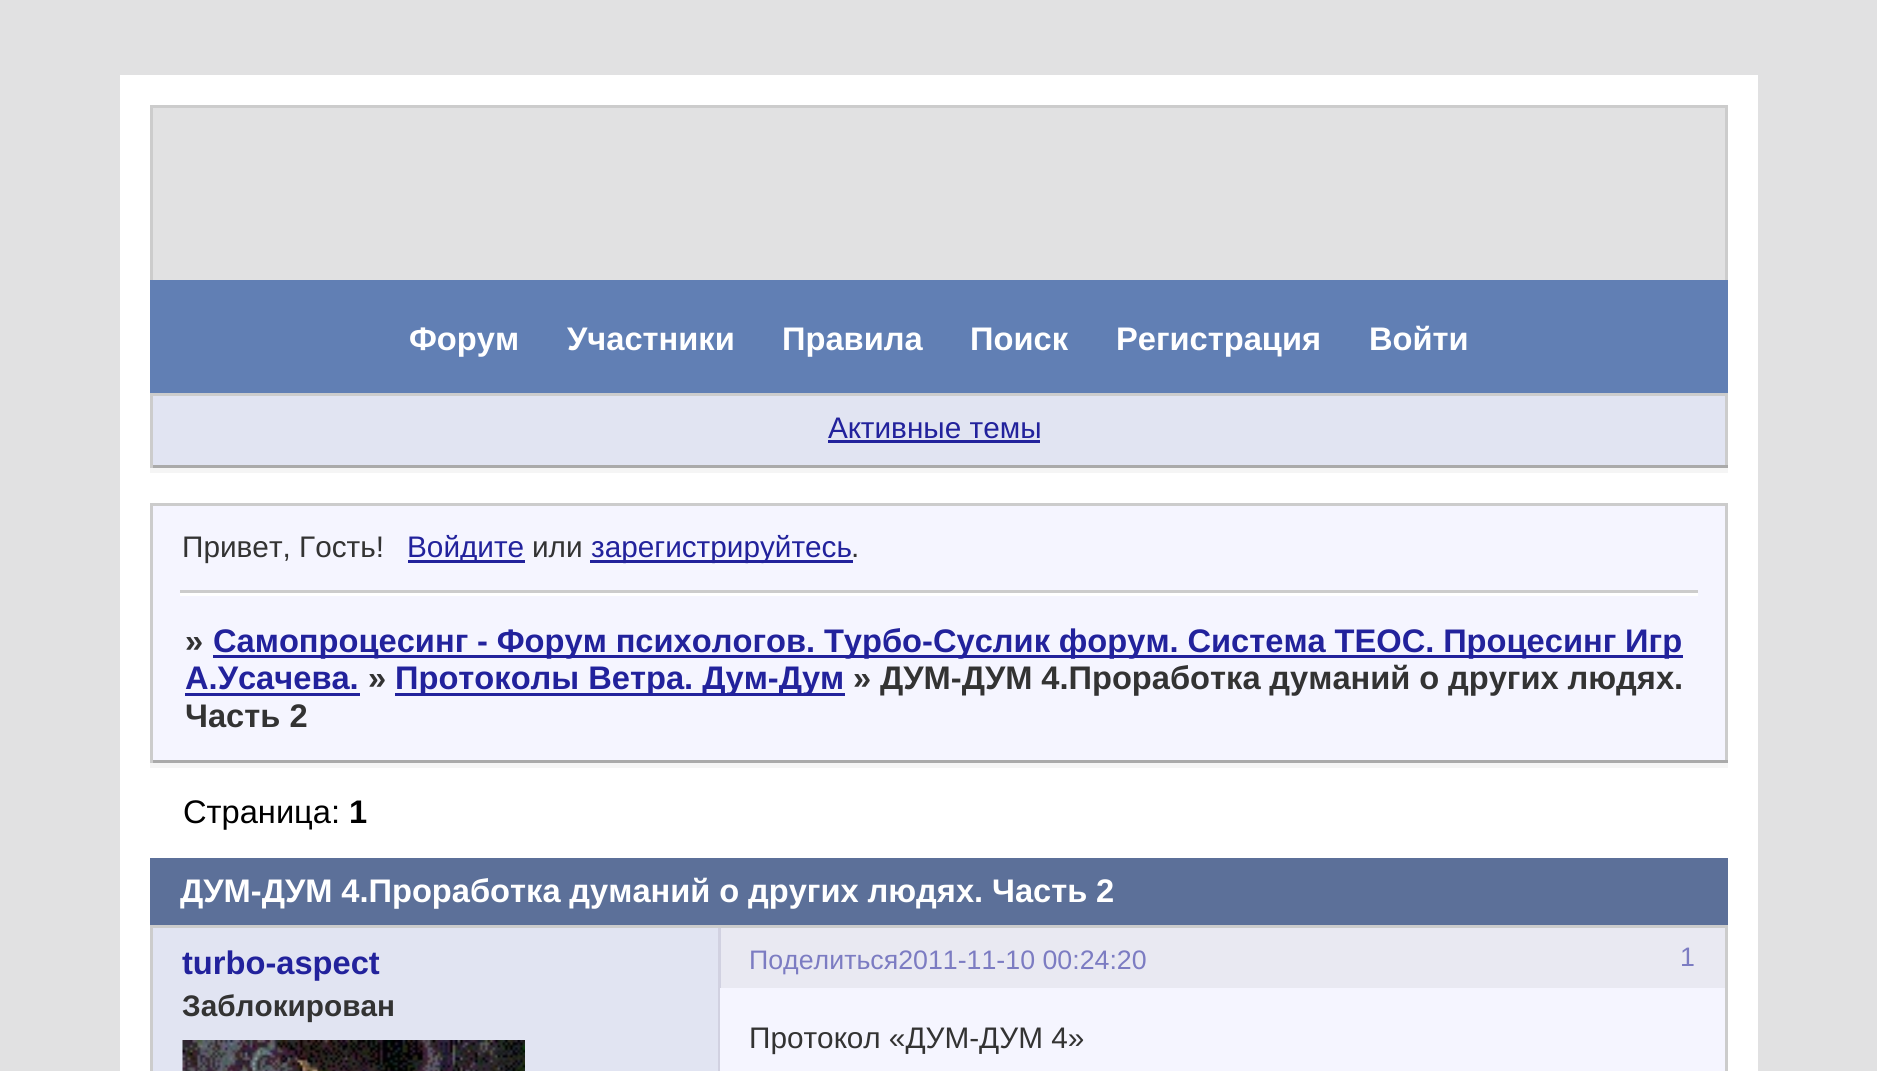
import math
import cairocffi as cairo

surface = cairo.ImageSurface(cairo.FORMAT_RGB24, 1877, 1071)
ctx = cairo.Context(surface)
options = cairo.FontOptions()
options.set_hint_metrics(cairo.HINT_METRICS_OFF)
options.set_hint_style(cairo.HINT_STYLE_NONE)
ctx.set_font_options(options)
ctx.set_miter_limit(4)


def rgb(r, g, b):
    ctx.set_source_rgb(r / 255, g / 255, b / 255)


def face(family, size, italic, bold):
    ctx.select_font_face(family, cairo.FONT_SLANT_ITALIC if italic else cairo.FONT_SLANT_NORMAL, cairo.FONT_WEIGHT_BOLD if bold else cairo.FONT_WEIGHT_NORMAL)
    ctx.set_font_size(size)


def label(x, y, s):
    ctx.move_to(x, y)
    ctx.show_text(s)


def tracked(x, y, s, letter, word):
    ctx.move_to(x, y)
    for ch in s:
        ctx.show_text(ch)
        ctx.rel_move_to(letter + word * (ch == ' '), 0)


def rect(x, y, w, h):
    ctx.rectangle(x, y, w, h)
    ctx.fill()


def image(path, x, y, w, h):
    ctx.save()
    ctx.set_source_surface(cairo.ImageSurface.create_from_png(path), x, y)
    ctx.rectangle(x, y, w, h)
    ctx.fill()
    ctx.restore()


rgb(225, 225, 226)
ctx.paint()
rgb(255, 255, 255)
rect(120, 75, 1638, 996)
rgb(204, 204, 204)
rect(150, 105, 1578, 3)
rect(1725, 105, 3, 175)
rect(150, 105, 3, 175)
rgb(225, 225, 226)
rect(153, 108, 1572, 172)
rgb(97, 127, 180)
rect(150, 280, 1578, 113)
face('Liberation Sans', 32.65, 0, 1)
rgb(255, 255, 255)
label(409, 350, 'Форум')
label(567, 350, 'Участники')
label(782, 350, 'Правила')
label(970, 350, 'Поиск')
label(1116, 350, 'Регистрация')
label(1369, 350, 'Войти')
rgb(245, 245, 245)
rect(150, 468, 1578, 5)
rgb(225, 228, 242)
rect(153, 396, 1572, 69)
rgb(204, 204, 204)
rect(150, 393, 1578, 3)
rect(1725, 393, 3, 75)
rgb(170, 170, 170)
rect(150, 465, 1578, 3)
rgb(204, 204, 204)
rect(150, 393, 3, 75)
face('Liberation Sans', 29.75, 0, 0)
rgb(34, 34, 156)
label(828, 438, 'Активные темы')
rect(828, 440, 212, 3)
rgb(245, 245, 255)
rect(153, 506, 1572, 254)
rgb(204, 204, 204)
rect(150, 503, 1578, 3)
rect(1725, 503, 3, 260)
rect(150, 503, 3, 92)
rgb(51, 51, 51)
label(182, 557, 'Привет, Гость!')
rgb(34, 34, 156)
rect(408, 560, 117, 3)
label(407, 557, 'Войдите')
rgb(51, 51, 51)
label(532, 557, 'или')
rgb(34, 34, 156)
rect(590, 560, 263, 3)
label(591, 557, 'зарегистрируйтесь')
rgb(51, 51, 51)
label(851, 557, '.')
rgb(204, 204, 204)
rect(180, 590, 1518, 3)
rgb(255, 255, 255)
rect(180, 593, 1518, 3)
rgb(245, 245, 245)
rect(150, 763, 1578, 5)
rgb(170, 170, 170)
rect(150, 760, 1578, 3)
rgb(204, 204, 204)
rect(150, 590, 3, 173)
face('Liberation Sans', 32.65, 0, 1)
rgb(51, 51, 51)
label(185, 652, '»')
rgb(34, 34, 156)
rect(213, 655, 1470, 3)
tracked(213, 652, 'Самопроцесинг - Форум психологов. Турбо-Суслик форум. Система ТЕОС. Процесинг Игр', 0, -0.25)
label(185, 689, 'А.Усачева.')
rect(185, 693, 175, 3)
rgb(51, 51, 51)
label(368, 689, '»')
rgb(34, 34, 156)
rect(395, 693, 450, 3)
label(395, 689, 'Протоколы Ветра. Дум-Дум')
rgb(51, 51, 51)
label(853, 689, '»')
tracked(880, 689, 'ДУМ-ДУМ 4.Проработка думаний о других людях.', 0, -0.25)
label(185, 727, 'Часть 2')
face('Liberation Sans', 32.65, 0, 0)
rgb(0, 0, 0)
label(183, 823, 'Страница:')
face('Liberation Sans', 32.65, 0, 1)
label(349, 823, '1')
rgb(92, 112, 153)
rect(150, 858, 1578, 67)
rgb(255, 255, 255)
tracked(180, 902, 'ДУМ-ДУМ 4.Проработка думаний о других людях. Часть 2', 0, -0.25)
rgb(225, 228, 242)
rect(153, 928, 565, 143)
rgb(34, 34, 156)
label(182, 974, 'turbo-aspect')
face('Liberation Sans', 29.75, 0, 1)
rgb(51, 51, 51)
label(182, 1016, 'Заблокирован')
image('image0.png', 182, 1040, 343, 31)
rgb(209, 209, 225)
rect(718, 928, 3, 62)
rect(718, 988, 2, 83)
rgb(245, 245, 255)
rect(720, 988, 1005, 83)
face('Liberation Sans', 29.75, 0, 0)
rgb(51, 51, 51)
label(749, 1048, 'Протокол «ДУМ-ДУМ 4»')
rgb(204, 204, 204)
rect(150, 925, 1578, 3)
rect(1725, 925, 3, 146)
rect(150, 925, 3, 146)
rgb(233, 233, 242)
rect(721, 928, 1004, 60)
face('Liberation Sans', 26.75, 0, 0)
rgb(124, 124, 194)
label(749, 969, 'Поделиться2011-11-10 00:24:20')
label(1680, 966, '1')
surface.write_to_png('render.png')
